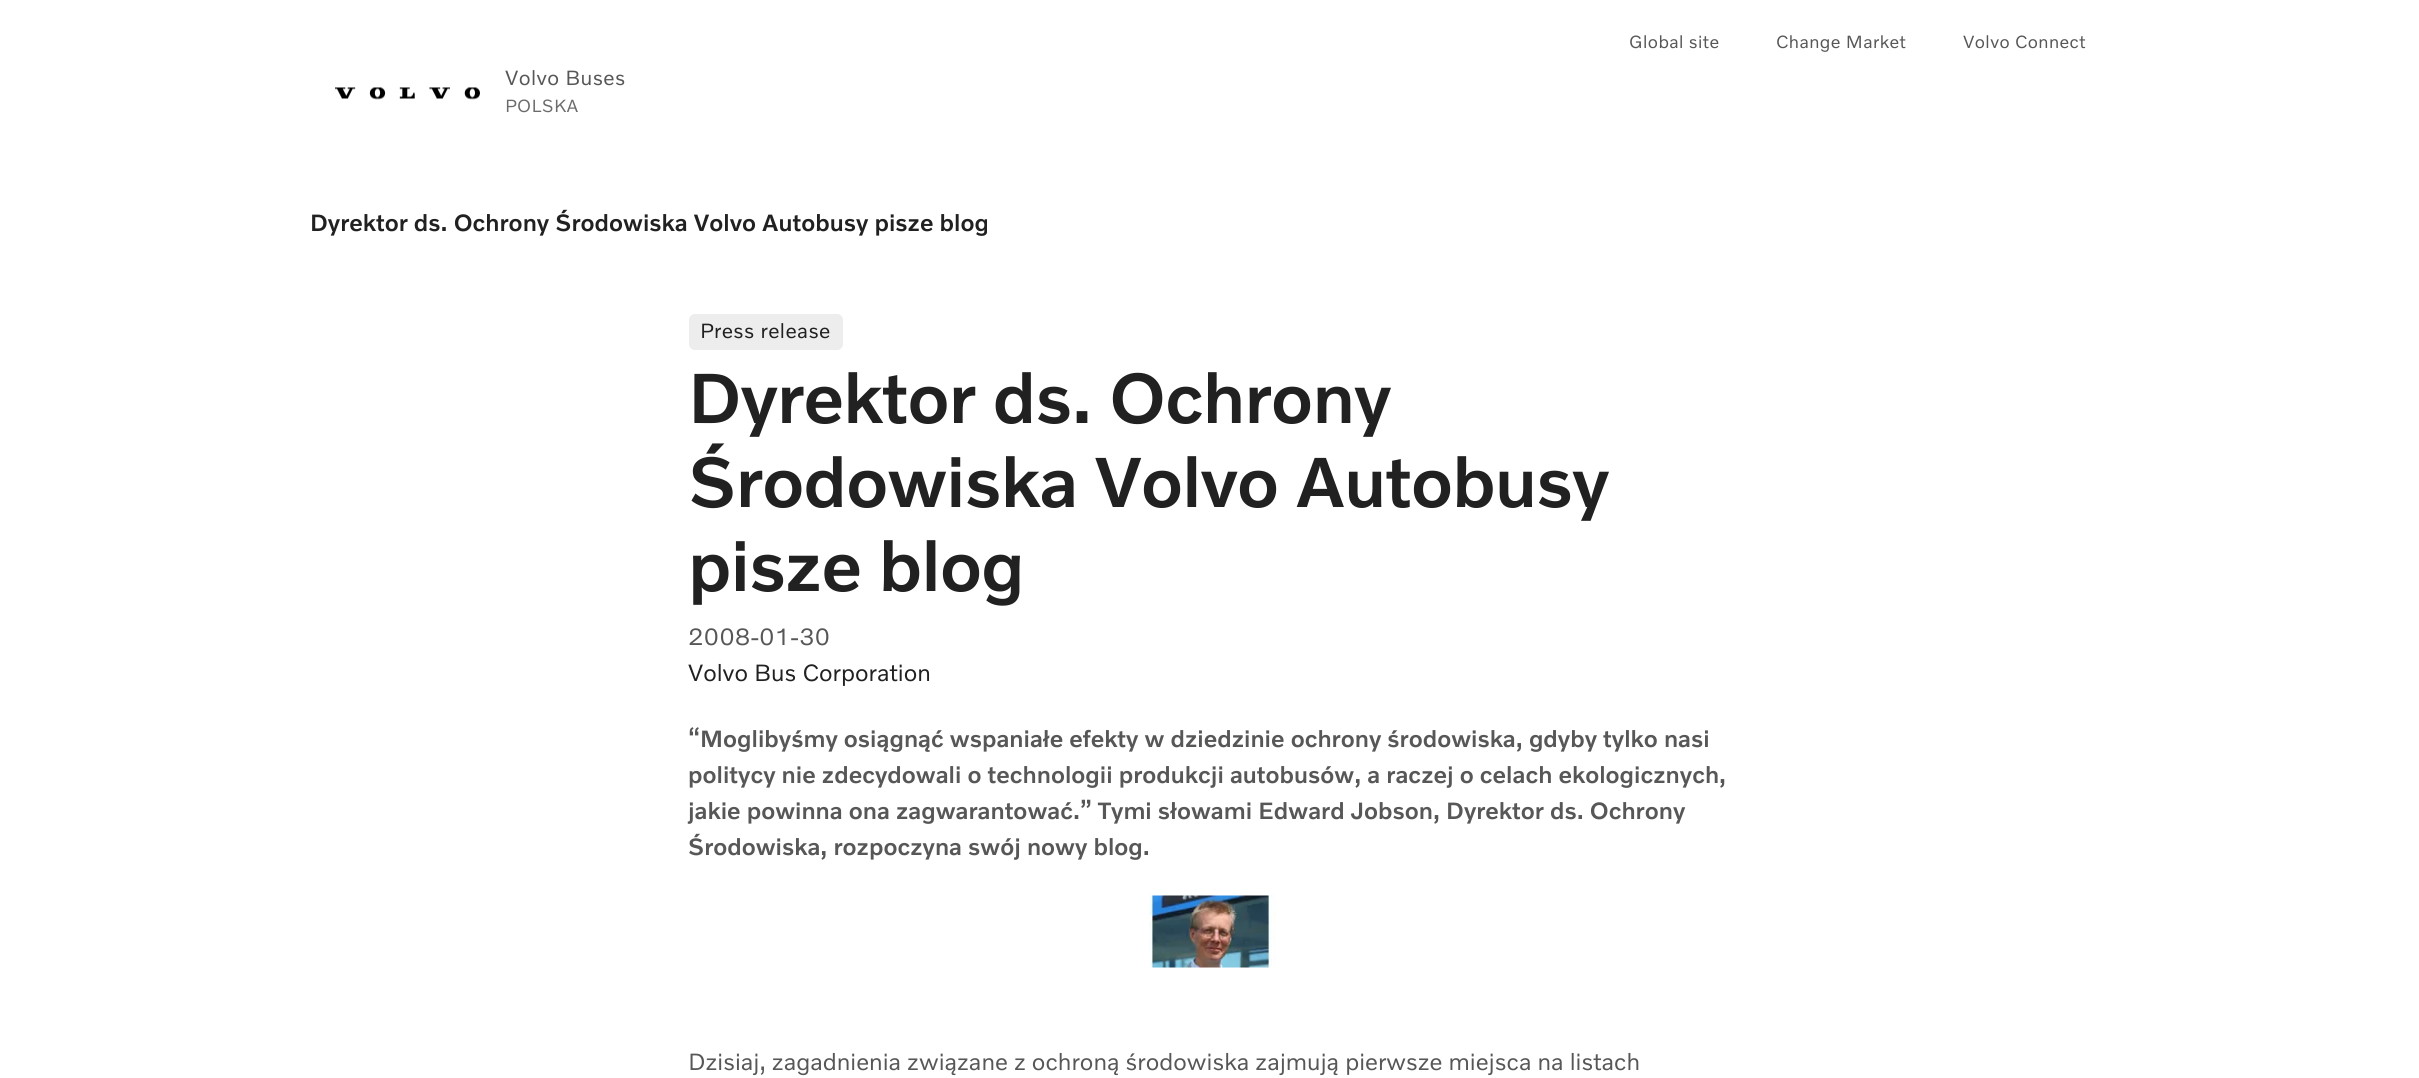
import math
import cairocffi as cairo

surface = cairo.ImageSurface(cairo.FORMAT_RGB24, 2419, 1078)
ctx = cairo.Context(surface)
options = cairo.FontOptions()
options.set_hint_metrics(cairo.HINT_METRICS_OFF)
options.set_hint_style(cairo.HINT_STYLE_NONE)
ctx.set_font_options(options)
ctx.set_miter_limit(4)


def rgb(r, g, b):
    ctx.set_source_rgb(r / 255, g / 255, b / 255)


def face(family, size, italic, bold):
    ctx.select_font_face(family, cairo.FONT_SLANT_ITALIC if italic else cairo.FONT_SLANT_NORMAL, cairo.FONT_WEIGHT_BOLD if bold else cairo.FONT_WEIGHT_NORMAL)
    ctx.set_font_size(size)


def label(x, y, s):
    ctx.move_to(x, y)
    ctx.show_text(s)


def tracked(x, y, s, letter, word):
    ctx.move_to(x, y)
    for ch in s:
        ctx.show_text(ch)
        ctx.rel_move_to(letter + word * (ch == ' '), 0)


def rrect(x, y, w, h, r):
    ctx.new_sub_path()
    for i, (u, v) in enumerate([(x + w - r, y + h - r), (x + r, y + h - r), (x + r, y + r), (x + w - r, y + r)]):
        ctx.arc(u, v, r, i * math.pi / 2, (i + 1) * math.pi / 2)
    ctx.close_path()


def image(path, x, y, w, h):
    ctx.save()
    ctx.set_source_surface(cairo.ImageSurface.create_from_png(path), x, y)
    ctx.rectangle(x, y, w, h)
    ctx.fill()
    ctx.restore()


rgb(255, 255, 255)
ctx.paint()
face('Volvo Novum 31', 18, 0, 0)
rgb(87, 87, 87)
tracked(1629, 48, 'Global site', 0.4, 0)
tracked(1776, 48, 'Change Market', 0.4, 0)
tracked(1963, 48, 'Volvo Connect', 0.4, 0)
image('image0.png', 335, 87, 145, 13)
face('Volvo Novum 31', 21, 0, 0)
tracked(505, 85, 'Volvo Buses', 0.4, 0)
face('Volvo Novum 31', 18, 0, 0)
rgb(107, 107, 107)
tracked(505, 112, 'POLSKA', 0.4, 0)
face('Volvo Novum 31', 24, 0, 1)
rgb(33, 33, 33)
label(310, 231, 'Dyrektor ds. Ochrony Środowiska Volvo Autobusy pisze blog')
rgb(237, 237, 237)
rrect(689, 314, 154, 36, 6)
ctx.fill()
face('Volvo Novum 31', 21, 0, 0)
rgb(33, 33, 33)
tracked(700, 338, 'Press release', 0.4, 0)
face('Volvo Novum 31', 72, 0, 1)
tracked(688, 423, 'Dyrektor ds. Ochrony', -0.75, 0)
tracked(688, 507, 'Środowiska Volvo Autobusy', -0.75, 0)
tracked(688, 591, 'pisze blog', -0.75, 0)
face('Volvo Novum 31', 24, 0, 0)
rgb(87, 87, 87)
label(688, 645, '2008-01-30')
rgb(33, 33, 33)
label(688, 681, 'Volvo Bus Corporation')
face('Volvo Novum 31', 24, 0, 1)
rgb(87, 87, 87)
label(688, 747, '“Moglibyśmy osiągnąć wspaniałe efekty w dziedzinie ochrony środowiska, gdyby tylko nasi')
label(688, 783, 'politycy nie zdecydowali o technologii produkcji autobusów, a raczej o celach ekologicznych,')
label(688, 819, 'jakie powinna ona zagwarantować.” Tymi słowami Edward Jobson, Dyrektor ds. Ochrony')
label(688, 855, 'Środowiska, rozpoczyna swój nowy blog.')
image('image1.png', 1149, 895, 127, 73)
face('Volvo Novum 31', 24, 0, 0)
label(688, 1070, 'Dzisiaj, zagadnienia związane z ochroną środowiska zajmują pierwsze miejsca na listach')
surface.write_to_png('render.png')
